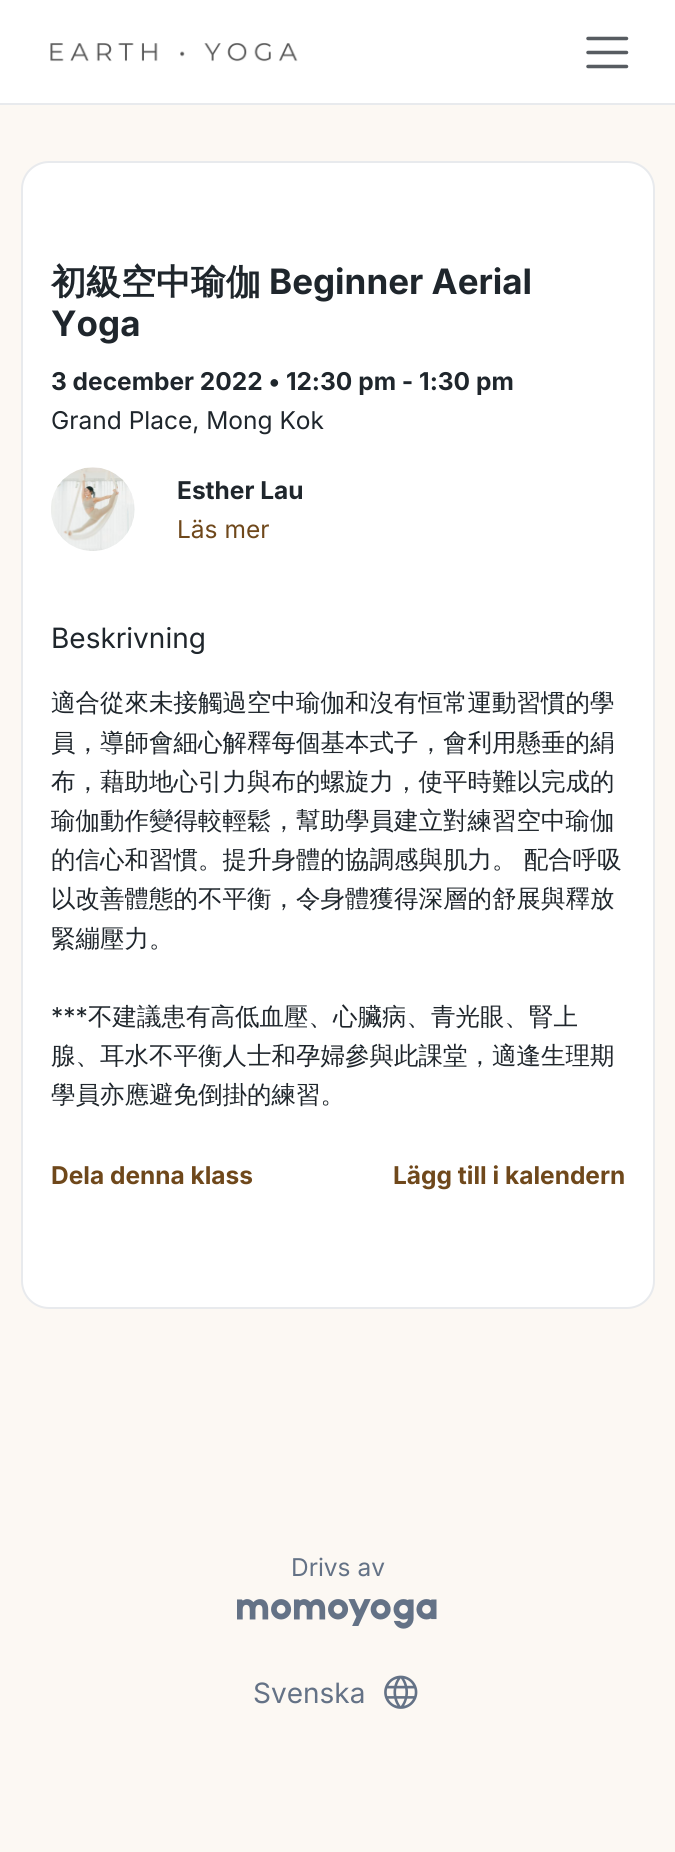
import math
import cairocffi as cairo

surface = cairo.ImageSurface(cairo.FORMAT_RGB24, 675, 1852)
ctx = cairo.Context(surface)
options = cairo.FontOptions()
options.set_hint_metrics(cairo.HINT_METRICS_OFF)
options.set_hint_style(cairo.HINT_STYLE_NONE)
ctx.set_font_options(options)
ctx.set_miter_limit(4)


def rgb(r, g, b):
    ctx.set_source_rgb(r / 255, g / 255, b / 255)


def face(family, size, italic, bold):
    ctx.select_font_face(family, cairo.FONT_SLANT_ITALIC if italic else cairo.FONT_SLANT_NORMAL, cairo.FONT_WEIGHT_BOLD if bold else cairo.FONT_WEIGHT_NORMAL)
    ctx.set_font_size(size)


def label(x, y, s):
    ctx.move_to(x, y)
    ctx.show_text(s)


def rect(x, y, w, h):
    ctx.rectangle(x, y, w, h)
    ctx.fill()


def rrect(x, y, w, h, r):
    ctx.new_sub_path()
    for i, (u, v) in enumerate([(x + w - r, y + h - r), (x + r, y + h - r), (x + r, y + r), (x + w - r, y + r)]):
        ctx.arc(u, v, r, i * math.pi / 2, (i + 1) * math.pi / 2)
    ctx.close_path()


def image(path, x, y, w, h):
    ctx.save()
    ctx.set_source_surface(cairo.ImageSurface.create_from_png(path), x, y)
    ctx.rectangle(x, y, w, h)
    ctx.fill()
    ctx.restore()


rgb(252, 248, 243)
ctx.paint()
rgb(255, 255, 255)
rect(0, 0, 675, 103)
rgb(232, 234, 237)
rect(0, 103, 675, 2)
image('image0.png', 50, 43, 248, 19)
ctx.new_path()
ctx.move_to(588, 38.5)
ctx.line_to(626.5, 38.5)
ctx.move_to(588, 52.5)
ctx.line_to(626.5, 52.5)
ctx.move_to(588, 66.5)
ctx.line_to(626.5, 66.5)
rgb(87, 92, 97)
ctx.set_line_width(3.5)
ctx.set_line_cap(cairo.LINE_CAP_ROUND)
ctx.stroke()
rgb(255, 255, 255)
rrect(22, 162, 632, 1146, 27)
ctx.fill_preserve()
rgb(232, 234, 237)
ctx.set_line_width(2)
ctx.set_line_cap(cairo.LINE_CAP_BUTT)
ctx.stroke()
face('WenQuanYi Zen Hei', 35, 0, 1)
rgb(31, 38, 44)
label(51, 294, '初級空中瑜伽')
face('Inter', 35, 0, 1)
label(269, 294, 'Beginner Aerial')
label(51, 336, 'Yoga')
face('Inter', 24.5, 0, 1)
label(51, 390, '3 december 2022 • 12:30 pm - 1:30 pm')
face('Inter', 24.5, 0, 0)
label(51, 429, 'Grand Place, Mong Kok')
image('image1.png', 51, 467, 84, 84)
face('Inter', 24.5, 0, 1)
label(177, 499, 'Esther Lau')
face('Inter', 24.5, 0, 0)
rgb(111, 72, 27)
label(177, 538, 'Läs mer')
face('Inter', 28, 0, 0)
rgb(31, 38, 44)
label(51, 648, 'Beskrivning')
face('WenQuanYi Zen Hei Medium', 24.5, 0, 0)
label(51, 711, '適合從來未接觸過空中瑜伽和沒有恒常運動習慣的學')
label(51, 751, '員，導師會細心解釋每個基本式子，會利用懸垂的絹')
label(51, 790, '布，藉助地心引力與布的螺旋力，使平時難以完成的')
label(51, 829, '瑜伽動作變得較輕鬆，幫助學員建立對練習空中瑜伽')
label(51, 868, '的信心和習慣。提升身體的協調感與肌力。 配合呼吸')
label(51, 907, '以改善體態的不平衡，令身體獲得深層的舒展與釋放')
label(51, 947, '緊繃壓力。')
face('Inter', 24.5, 0, 0)
label(51, 1025, '***')
face('WenQuanYi Zen Hei Medium', 24.5, 0, 0)
label(88, 1025, '不建議患有高低血壓、心臟病、青光眼、腎上')
label(51, 1064, '腺、耳水不平衡人士和孕婦參與此課堂，適逢生理期')
label(51, 1103, '學員亦應避免倒掛的練習。')
face('Inter', 24.5, 0, 1)
rgb(111, 72, 27)
label(51, 1184, 'Dela denna klass')
label(393, 1184, 'Lägg till i kalendern')
face('Inter', 24.5, 0, 0)
rgb(100, 114, 134)
label(291, 1576, 'Drivs av')
image('image2.png', 237, 1599, 200, 30)
face('Inter', 28, 0, 0)
label(253, 1703, 'Svenska')
image('image3.png', 384, 1675, 34, 34)
surface.write_to_png('render.png')
